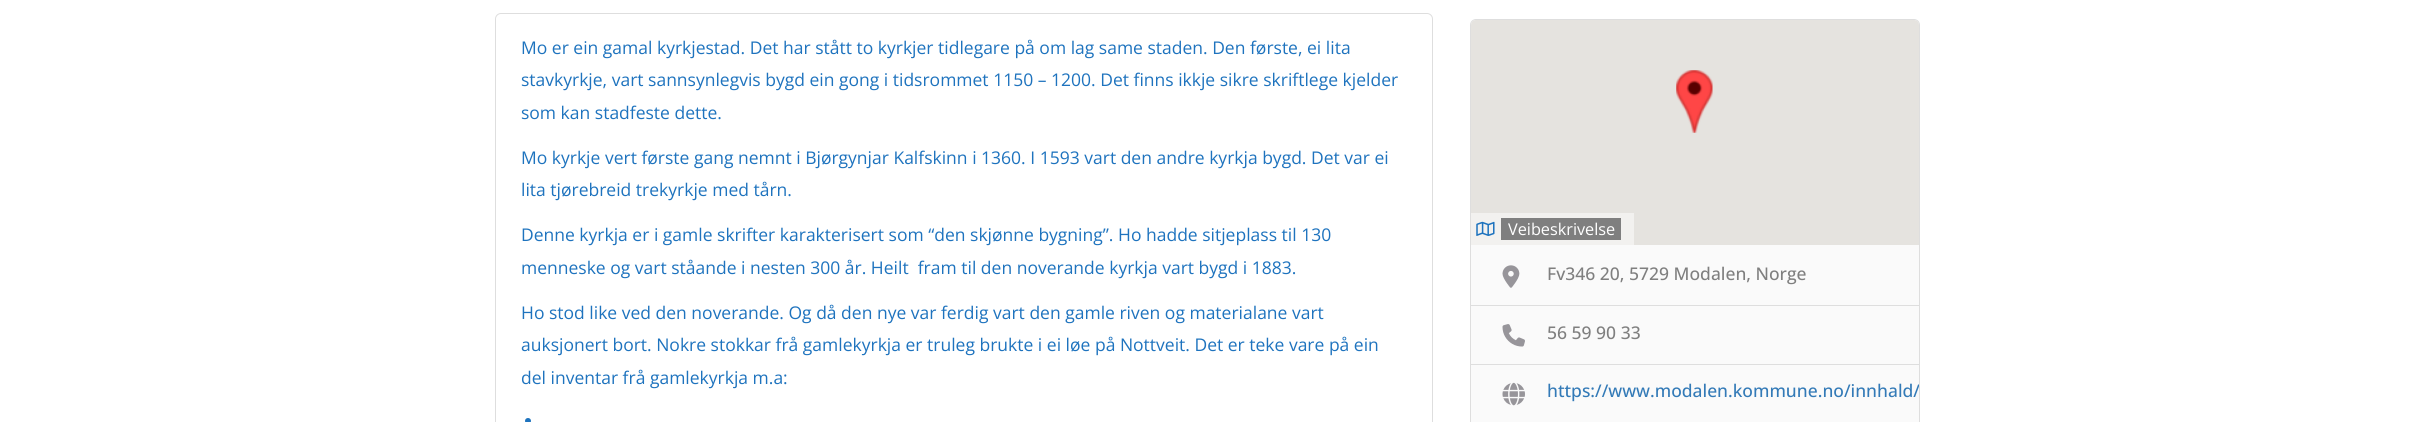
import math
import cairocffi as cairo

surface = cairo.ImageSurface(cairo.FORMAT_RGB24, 2415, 422)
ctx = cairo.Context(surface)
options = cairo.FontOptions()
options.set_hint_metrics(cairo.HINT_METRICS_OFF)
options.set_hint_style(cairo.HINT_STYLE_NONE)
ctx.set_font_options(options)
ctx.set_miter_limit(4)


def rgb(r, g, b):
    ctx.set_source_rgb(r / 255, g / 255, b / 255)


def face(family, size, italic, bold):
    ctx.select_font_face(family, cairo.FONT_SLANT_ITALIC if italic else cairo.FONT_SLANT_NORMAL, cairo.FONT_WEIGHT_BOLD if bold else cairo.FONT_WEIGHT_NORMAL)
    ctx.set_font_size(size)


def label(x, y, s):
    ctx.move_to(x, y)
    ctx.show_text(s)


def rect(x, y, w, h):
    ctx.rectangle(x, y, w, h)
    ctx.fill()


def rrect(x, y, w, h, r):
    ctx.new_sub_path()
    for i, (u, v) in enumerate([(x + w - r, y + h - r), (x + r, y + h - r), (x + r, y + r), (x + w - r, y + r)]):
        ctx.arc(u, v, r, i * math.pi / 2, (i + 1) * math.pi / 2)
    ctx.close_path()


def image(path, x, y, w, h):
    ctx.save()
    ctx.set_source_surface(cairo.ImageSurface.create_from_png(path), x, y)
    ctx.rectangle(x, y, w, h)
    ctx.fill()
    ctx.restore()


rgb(255, 255, 255)
ctx.paint()
rrect(495.5, 13.5, 937, 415, 5.5)
rgb(222, 222, 222)
ctx.set_line_width(1)
ctx.stroke()
face('Open Sans', 17.5, 0, 0)
rgb(30, 115, 190)
label(521, 54, 'Mo er ein gamal kyrkjestad. Det har stått to kyrkjer tidlegare på om lag same staden. Den første, ei lita')
label(521, 86, 'stavkyrkje, vart sannsynlegvis bygd ein gong i tidsrommet 1150 – 1200. Det finns ikkje sikre skriftlege kjelder')
label(521, 119, 'som kan stadfeste dette.')
label(521, 164, 'Mo kyrkje vert første gang nemnt i Bjørgynjar Kalfskinn i 1360. I 1593 vart den andre kyrkja bygd. Det var ei')
label(521, 196, 'lita tjørebreid trekyrkje med tårn.')
label(521, 241, 'Denne kyrkja er i gamle skrifter karakterisert som “den skjønne bygning”. Ho hadde sitjeplass til 130')
label(521, 274, 'menneske og vart ståande i nesten 300 år. Heilt  fram til den noverande kyrkja vart bygd i 1883.')
label(521, 319, 'Ho stod like ved den noverande. Og då den nye var ferdig vart den gamle riven og materialane vart')
label(521, 351, 'auksjonert bort. Nokre stokkar frå gamlekyrkja er truleg brukte i ei løe på Nottveit. Det er teke vare på ein')
label(521, 384, 'del inventar frå gamlekyrkja m.a:')
ctx.new_path()
ctx.arc(528, 421, 3, 0, 2 * math.pi)
ctx.fill()
rgb(250, 250, 250)
rrect(1470.5, 19.5, 449, 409, 5.5)
ctx.fill_preserve()
rgb(222, 222, 222)
ctx.stroke()
rgb(229, 227, 223)
ctx.new_path()
ctx.move_to(1476, 20)
ctx.line_to(1914, 20)
ctx.curve_to(1917, 20, 1919, 22, 1919, 25)
ctx.line_to(1919, 245)
ctx.line_to(1471, 245)
ctx.line_to(1471, 25)
ctx.curve_to(1471, 22, 1473, 20, 1476, 20)
ctx.close_path()
ctx.fill()
image('image0.png', 1676, 70, 37, 63)
rgb(242, 241, 239)
rect(1471, 213, 163, 32)
image('image1.png', 1476, 221, 19, 15)
rgb(127, 127, 127)
rect(1501, 218, 120, 22)
face('Open Sans', 16.25, 0, 0)
rgb(255, 255, 255)
label(1508, 235, 'Veibeskrivelse')
rgb(222, 222, 222)
rect(1471, 305, 448, 1)
image('image2.png', 1502, 265, 18, 23)
face('Open Sans Medium', 17.5, 0, 0)
rgb(127, 127, 127)
label(1547, 280, 'Fv346 20, 5729 Modalen, Norge')
rgb(222, 222, 222)
rect(1471, 364, 448, 1)
image('image3.png', 1502, 324, 23, 23)
rgb(127, 127, 127)
label(1547, 339, '56 59 90 33')
image('image4.png', 1502, 382, 23, 24)
ctx.save()
rrect(1471, 20, 448, 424, 5)
ctx.clip()
rgb(51, 122, 183)
label(1547, 397, 'https://www.modalen.kommune.no/innhald/')
ctx.restore()
surface.write_to_png('render.png')
